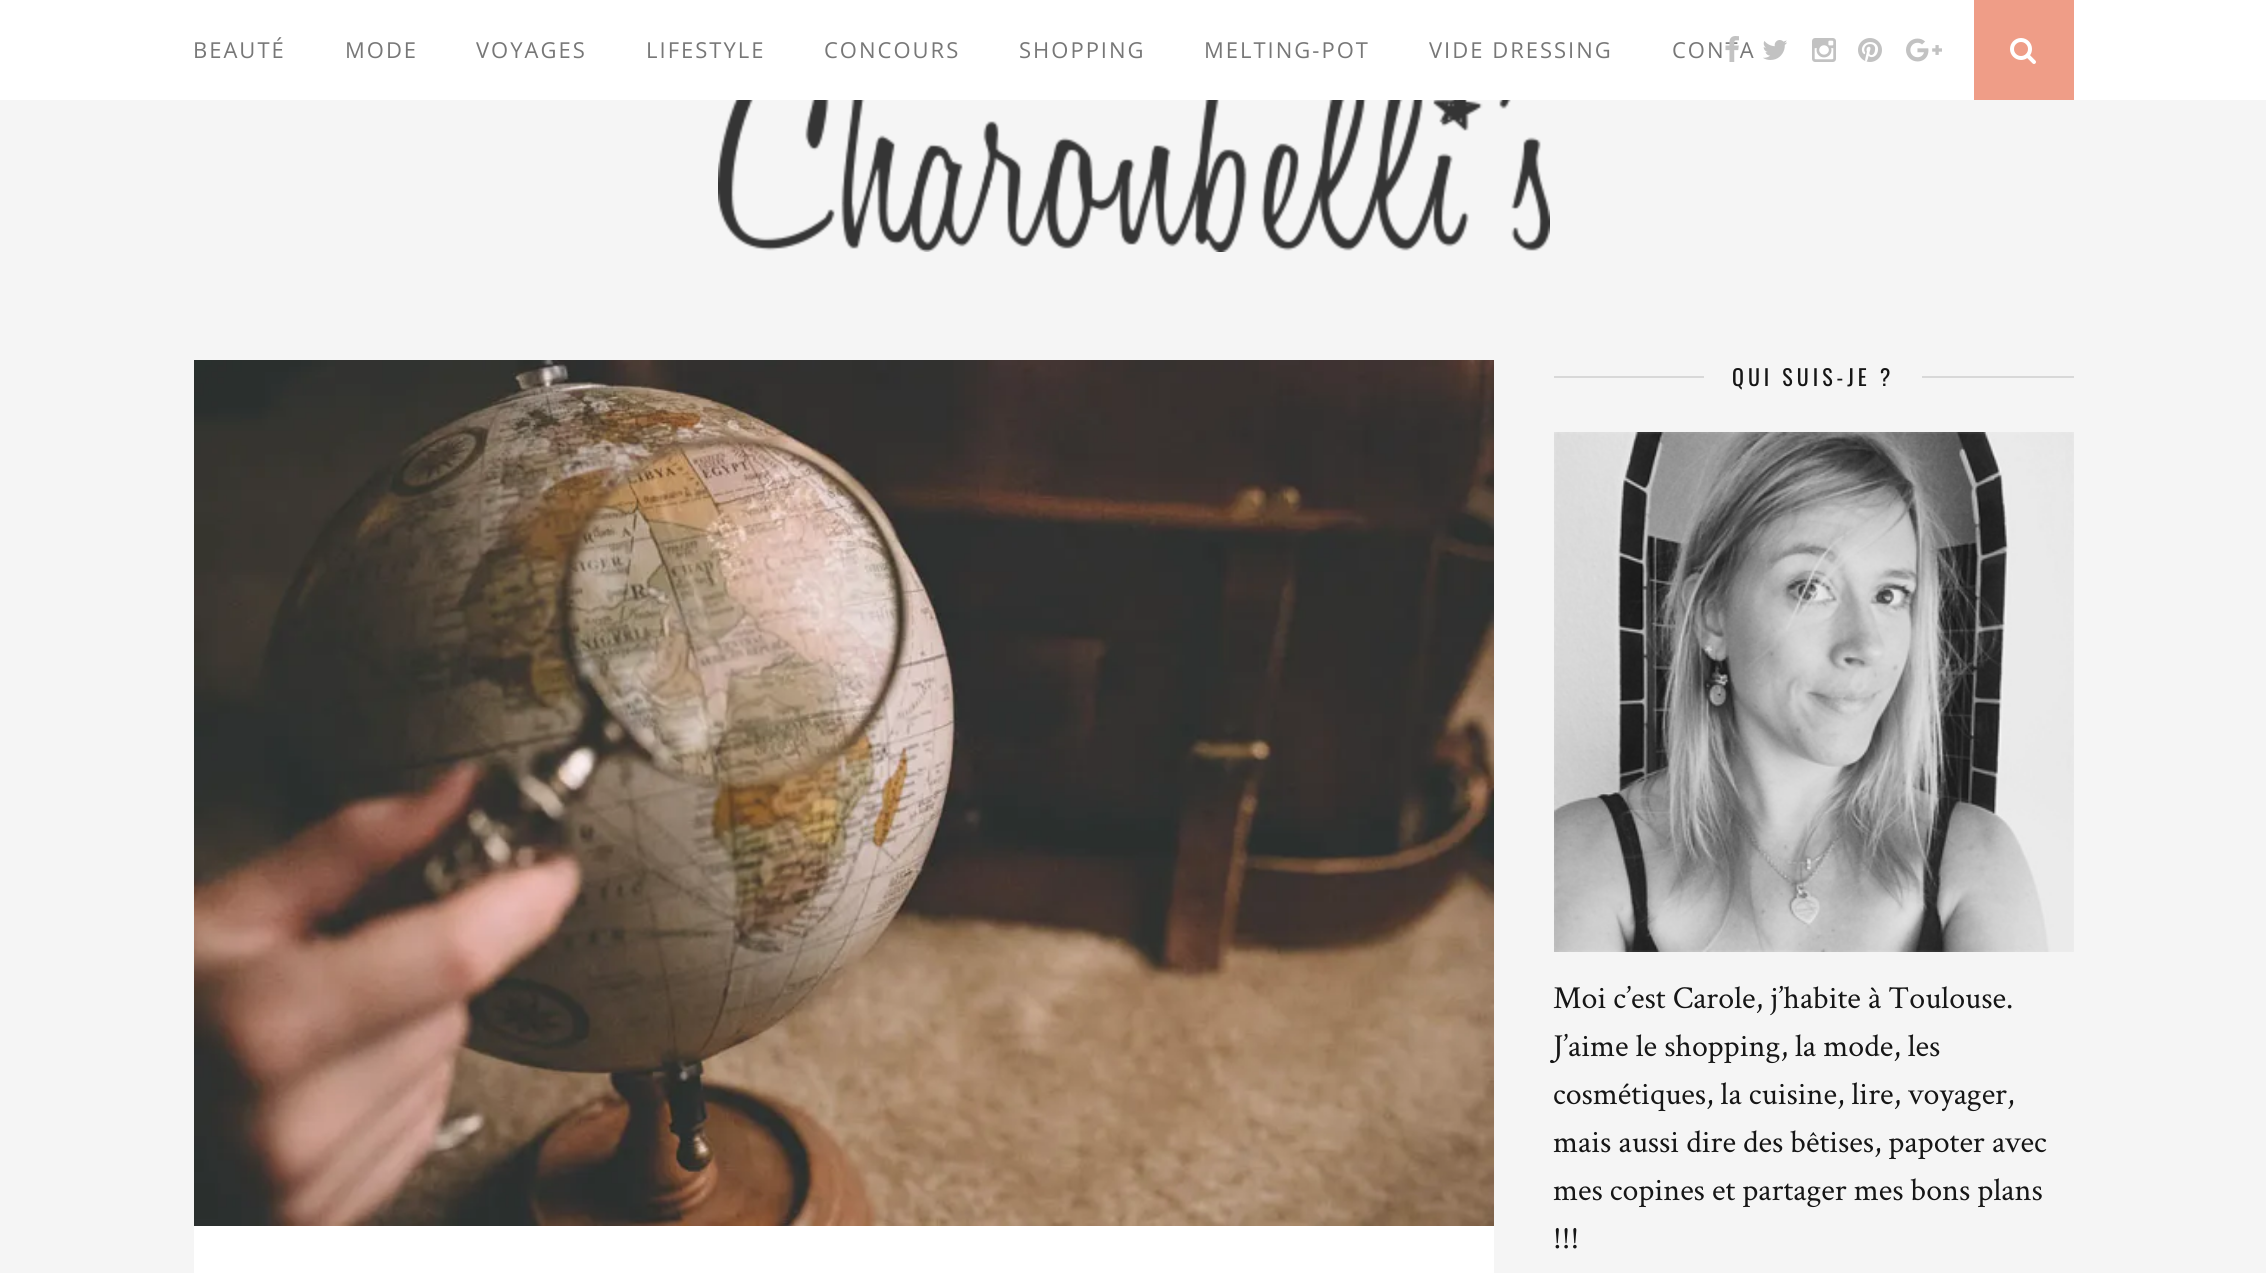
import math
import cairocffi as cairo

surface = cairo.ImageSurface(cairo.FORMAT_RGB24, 2266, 1273)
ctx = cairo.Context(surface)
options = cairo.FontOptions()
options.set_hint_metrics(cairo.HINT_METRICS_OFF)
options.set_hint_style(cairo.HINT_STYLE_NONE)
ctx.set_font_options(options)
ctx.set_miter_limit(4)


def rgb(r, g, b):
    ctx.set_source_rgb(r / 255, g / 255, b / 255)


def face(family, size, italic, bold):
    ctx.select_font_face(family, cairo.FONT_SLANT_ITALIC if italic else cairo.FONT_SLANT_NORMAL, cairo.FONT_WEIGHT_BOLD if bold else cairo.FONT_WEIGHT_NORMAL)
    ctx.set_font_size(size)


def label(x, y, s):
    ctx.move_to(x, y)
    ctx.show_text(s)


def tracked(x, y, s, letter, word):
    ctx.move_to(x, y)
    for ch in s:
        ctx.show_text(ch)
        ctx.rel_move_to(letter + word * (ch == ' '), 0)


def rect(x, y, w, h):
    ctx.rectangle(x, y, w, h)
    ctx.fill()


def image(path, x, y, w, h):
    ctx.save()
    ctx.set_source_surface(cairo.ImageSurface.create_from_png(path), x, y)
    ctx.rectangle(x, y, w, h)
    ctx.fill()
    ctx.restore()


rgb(245, 245, 245)
ctx.paint()
rgb(255, 255, 255)
rect(0, 0, 2266, 100)
face('Open Sans', 22, 0, 0)
rgb(119, 119, 119)
tracked(193, 58, 'BEAUTÉ', 2, 0)
tracked(345, 58, 'MODE', 2, 0)
tracked(476, 58, 'VOYAGES', 2, 0)
tracked(646, 58, 'LIFESTYLE', 2, 0)
tracked(824, 58, 'CONCOURS', 2, 0)
tracked(1019, 58, 'SHOPPING', 2, 0)
tracked(1204, 58, 'MELTING-POT', 2, 0)
tracked(1429, 58, 'VIDE DRESSING', 2, 0)
tracked(1672, 58, 'CONTA', 2, 0)
image('image0.png', 1725, 36, 14, 26)
image('image1.png', 1763, 40, 24, 20)
image('image2.png', 1812, 38, 24, 24)
image('image3.png', 1858, 38, 24, 24)
image('image4.png', 1906, 38, 36, 24)
rgb(239, 157, 135)
rect(1974, 0, 100, 100)
image('image5.png', 2010, 38, 26, 26)
image('image6.png', 718, 100, 832, 152)
rgb(255, 255, 255)
rect(194, 1226, 1300, 47)
image('image7.png', 194, 360, 1300, 866)
rgb(216, 216, 216)
rect(1554, 376, 150, 2)
face('Oswald', 22, 0, 0)
rgb(22, 22, 22)
tracked(1732, 386, 'QUI SUIS-JE ?', 4, 0)
rgb(216, 216, 216)
rect(1922, 376, 152, 2)
image('image8.png', 1554, 432, 520, 520)
face('Crimson Text', 32, 0, 0)
rgb(22, 22, 22)
label(1553, 1008, 'Moi c’est Carole, j’habite à Toulouse.')
label(1553, 1056, 'J’aime le shopping, la mode, les')
label(1553, 1104, 'cosmétiques, la cuisine, lire, voyager,')
label(1553, 1152, 'mais aussi dire des bêtises, papoter avec')
label(1553, 1200, 'mes copines et partager mes bons plans')
label(1553, 1248, '!!!')
surface.write_to_png('render.png')
